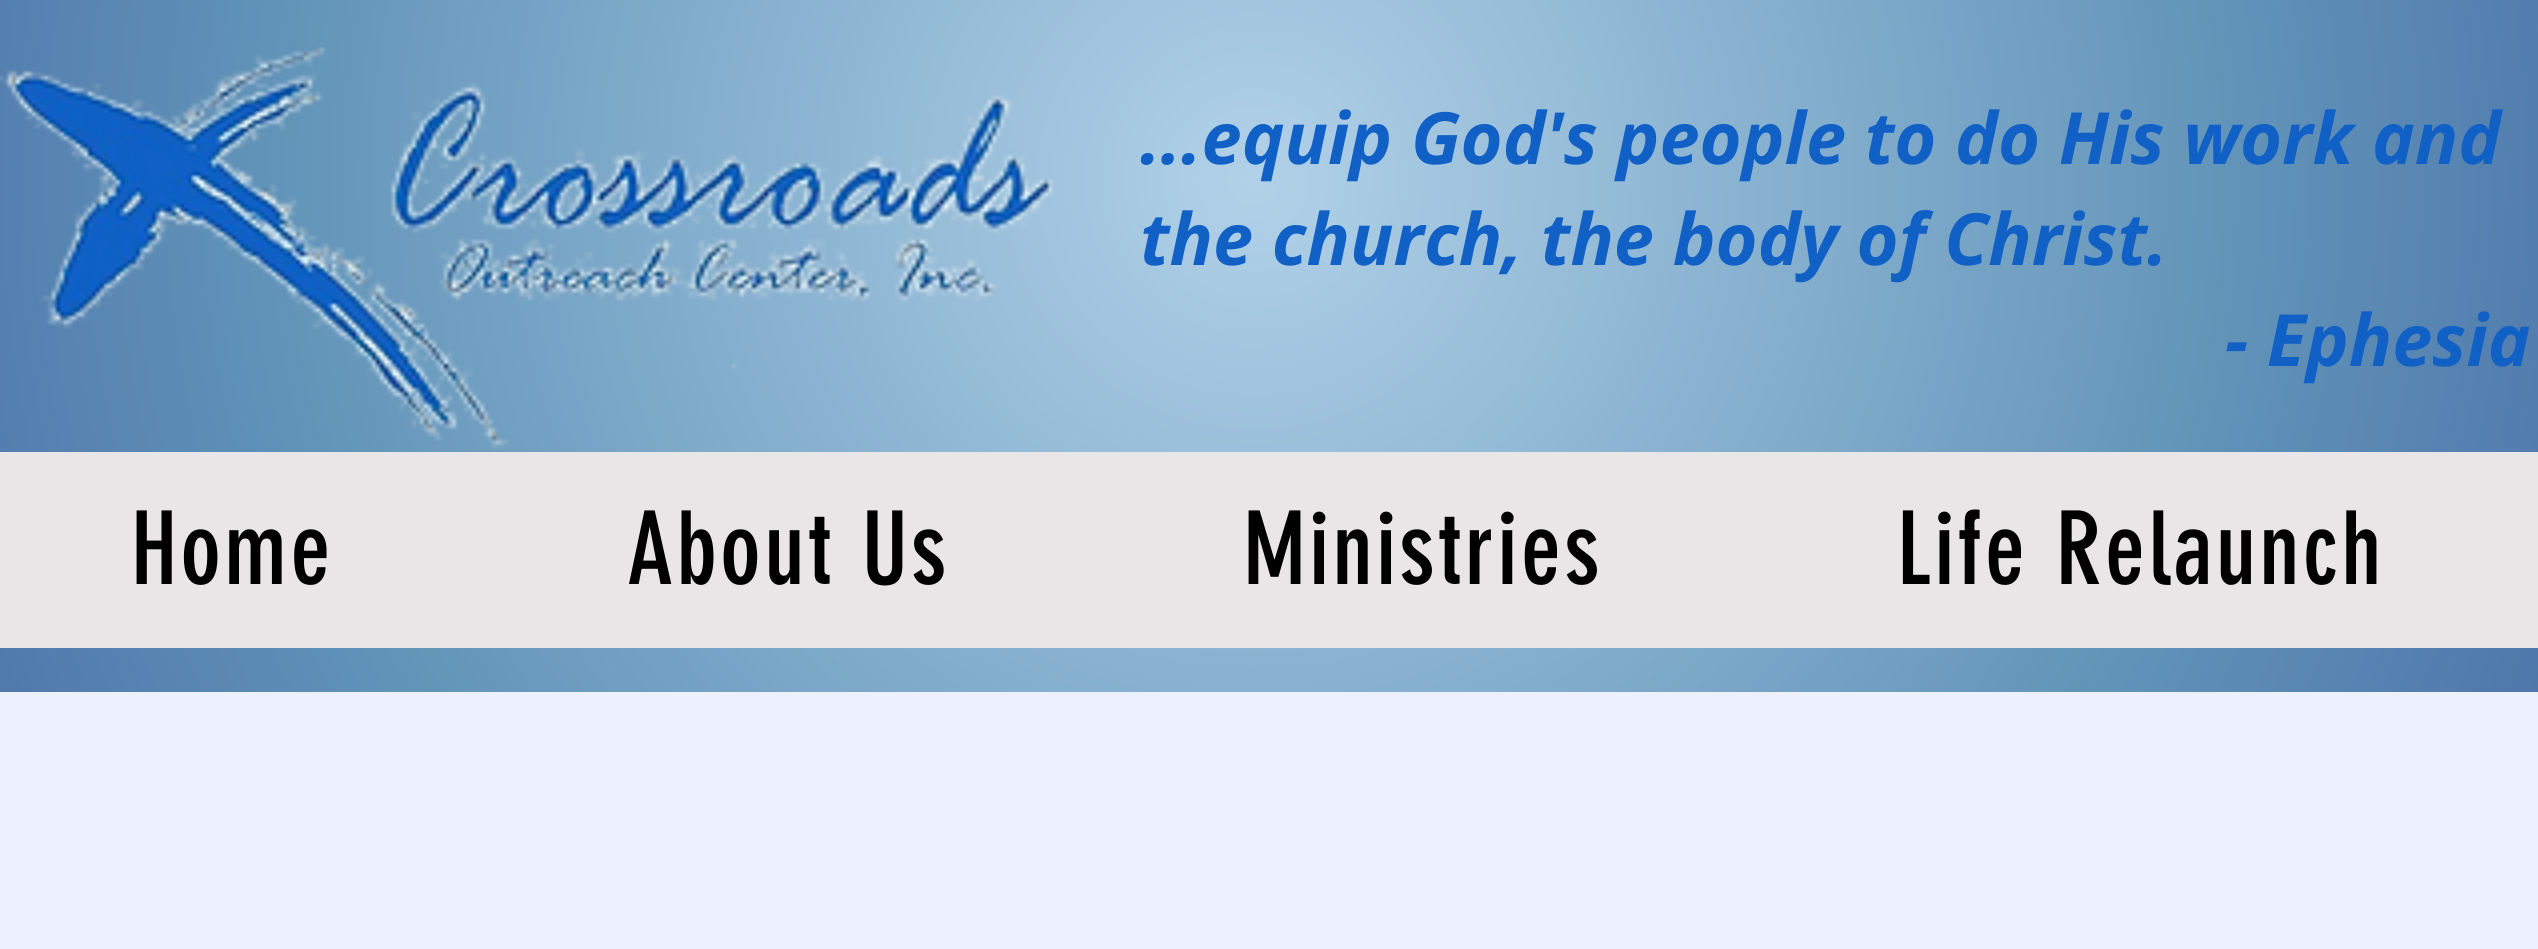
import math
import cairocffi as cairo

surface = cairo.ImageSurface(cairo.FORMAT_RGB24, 2538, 949)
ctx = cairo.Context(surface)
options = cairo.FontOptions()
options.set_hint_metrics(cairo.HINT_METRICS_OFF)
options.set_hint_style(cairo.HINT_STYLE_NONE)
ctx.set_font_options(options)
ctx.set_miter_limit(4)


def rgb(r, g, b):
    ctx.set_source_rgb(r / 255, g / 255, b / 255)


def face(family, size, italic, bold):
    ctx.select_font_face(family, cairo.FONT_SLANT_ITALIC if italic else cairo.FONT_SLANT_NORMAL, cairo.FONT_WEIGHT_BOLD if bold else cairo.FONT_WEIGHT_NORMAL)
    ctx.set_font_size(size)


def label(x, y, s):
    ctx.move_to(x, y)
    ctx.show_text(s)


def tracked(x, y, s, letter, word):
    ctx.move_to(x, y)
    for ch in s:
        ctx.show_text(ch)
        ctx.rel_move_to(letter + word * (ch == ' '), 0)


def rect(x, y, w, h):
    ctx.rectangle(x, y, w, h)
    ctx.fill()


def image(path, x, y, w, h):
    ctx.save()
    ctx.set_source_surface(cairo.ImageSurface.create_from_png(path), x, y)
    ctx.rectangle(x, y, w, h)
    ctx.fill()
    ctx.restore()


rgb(237, 241, 253)
ctx.paint()
gradient = cairo.RadialGradient(1254, 180, 0, 1254, 180, 2714)
gradient.add_color_stop_rgba(0, 0.694, 0.82, 0.91, 1)
gradient.add_color_stop_rgba(0.36, 0.384, 0.58, 0.725, 1)
gradient.add_color_stop_rgba(0.76, 0.176, 0.278, 0.58, 1)
ctx.set_source(gradient)
rect(0, 0, 2538, 692)
image('image0.png', 0, 46, 1054, 403)
face('Open Sans', 72, 1, 1)
rgb(16, 96, 197)
label(1140, 164, '...equip God\'s people to do His work and')
label(1140, 265, 'the church, the body of Christ.')
label(2225, 366, '- Ephesia')
rgb(232, 230, 230)
rect(0, 452, 2538, 196)
face('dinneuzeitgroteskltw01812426', 100, 0, 0)
rgb(0, 0, 0)
tracked(131, 584, 'Home', 3, 0)
tracked(627, 584, 'About Us', 3, 0)
tracked(1243, 584, 'Ministries', 3, 0)
tracked(1896, 584, 'Life Relaunch', 3, 0)
surface.write_to_png('render.png')
